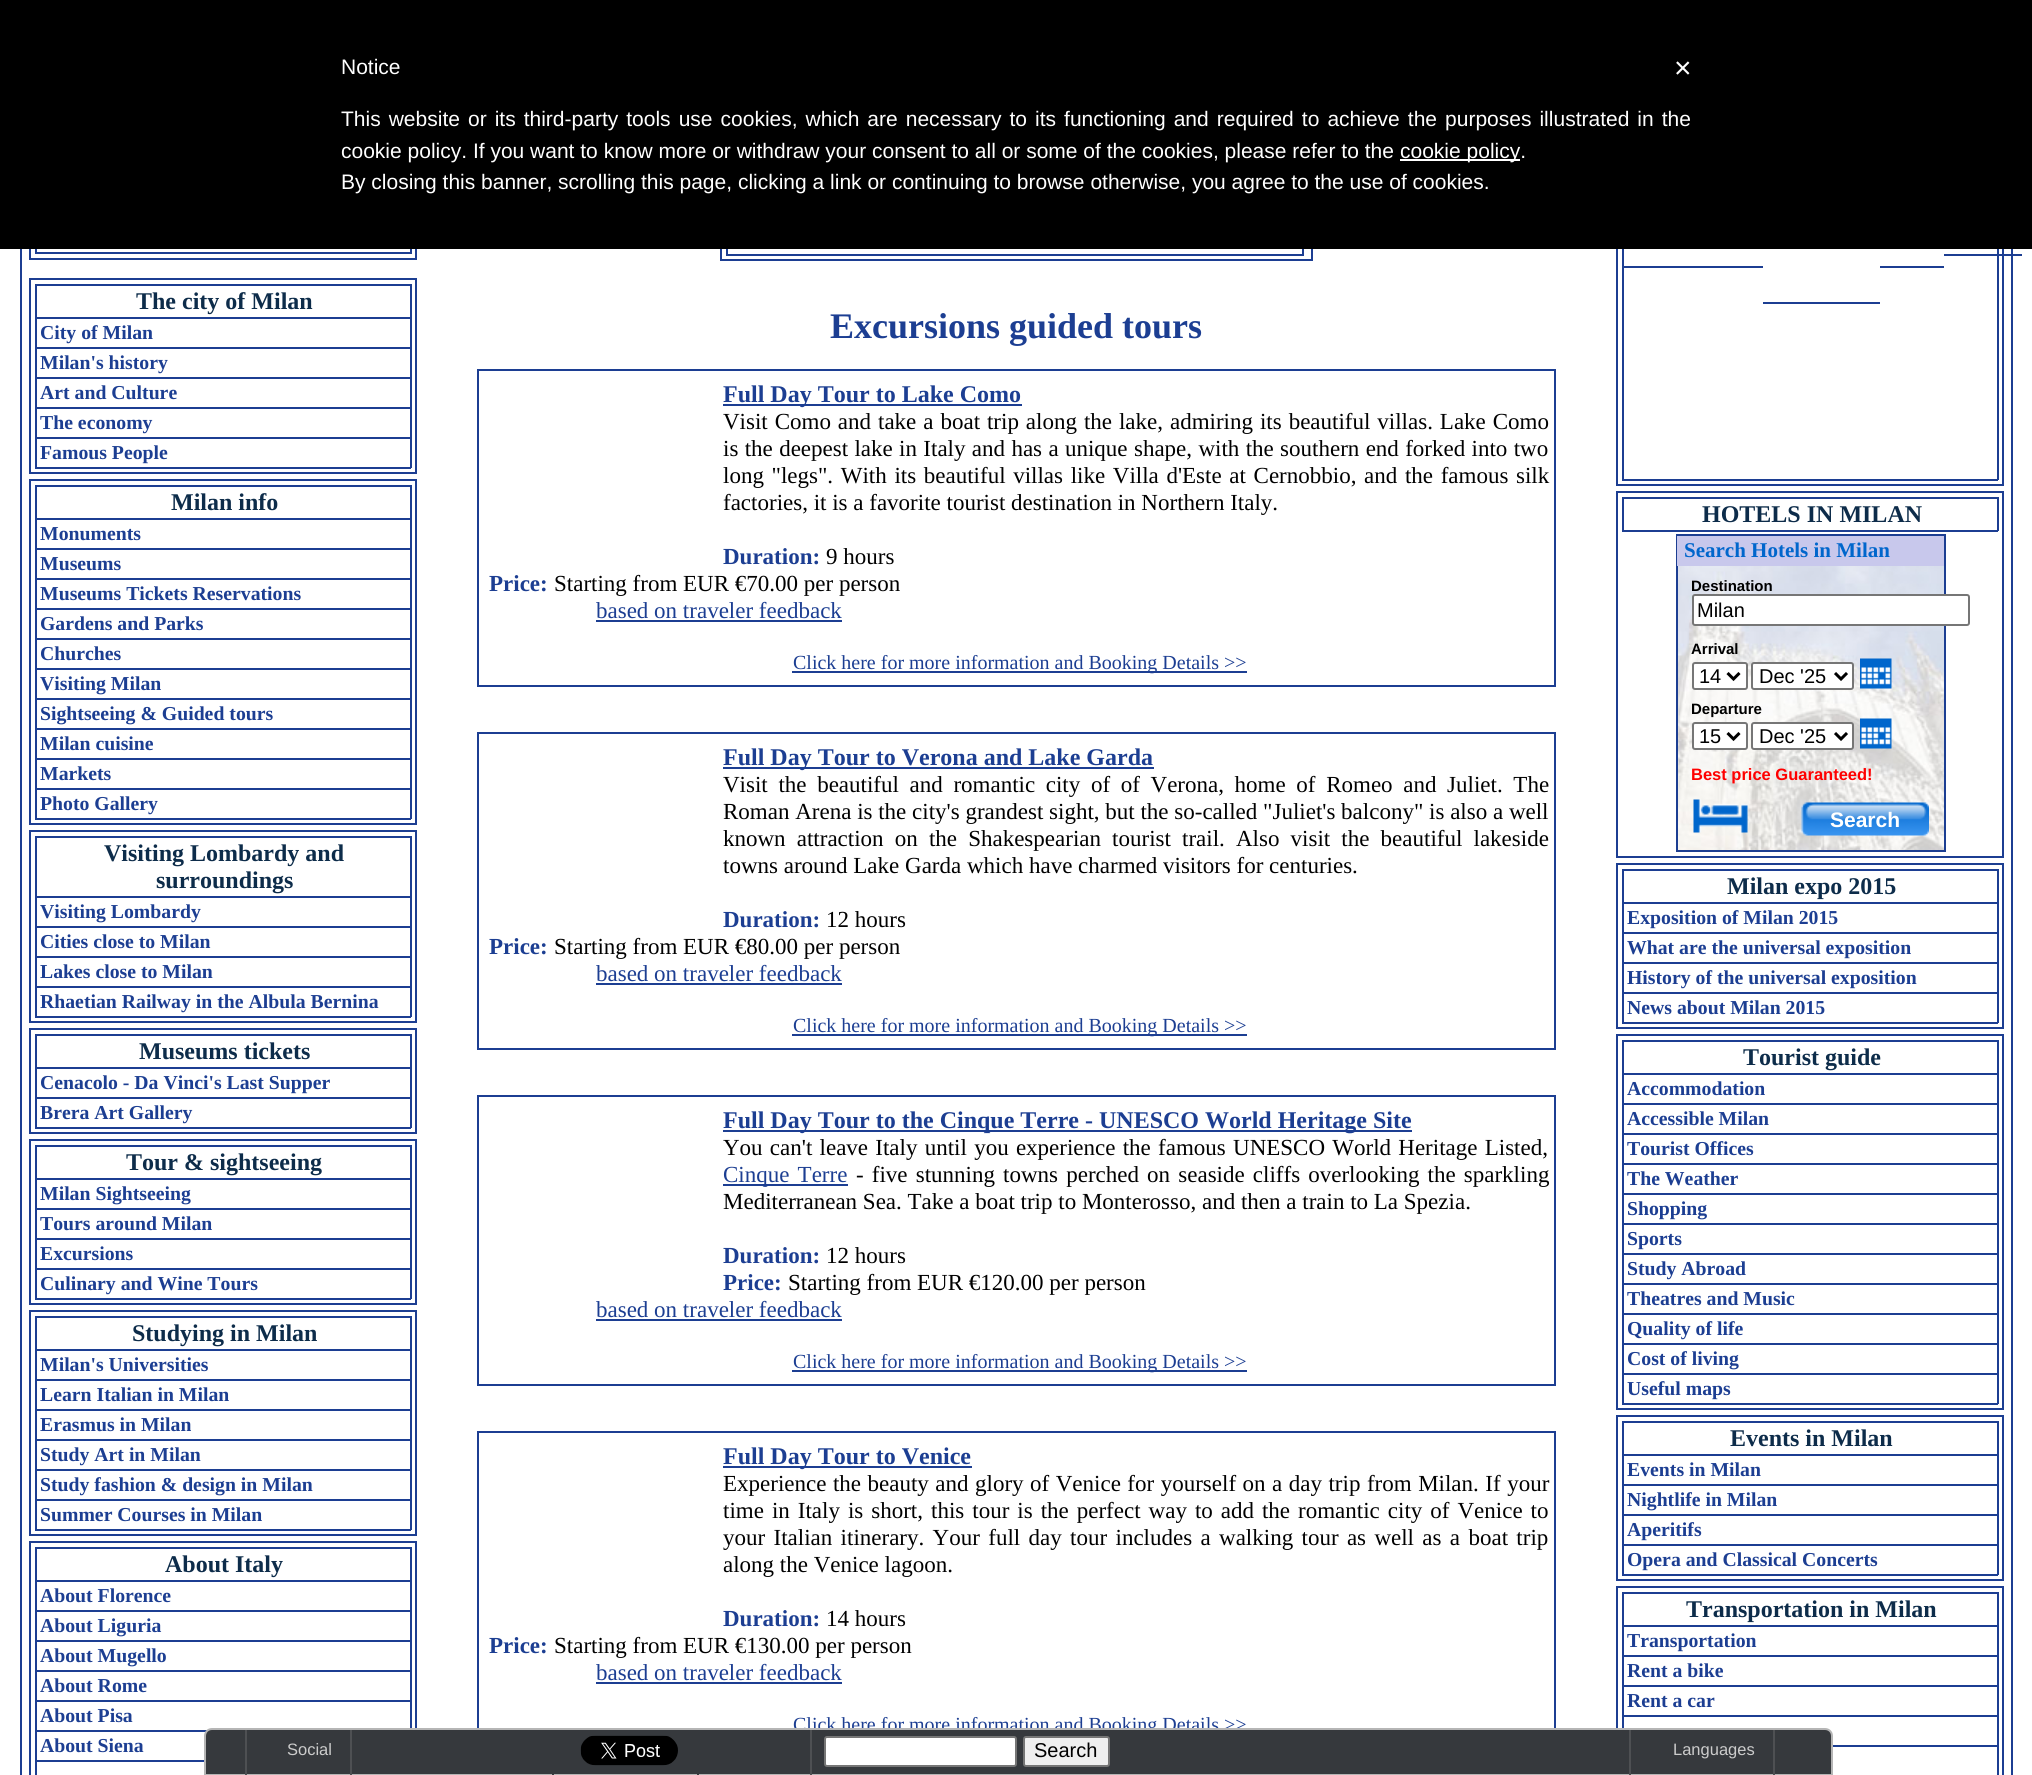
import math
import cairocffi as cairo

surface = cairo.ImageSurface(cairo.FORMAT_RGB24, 2032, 1775)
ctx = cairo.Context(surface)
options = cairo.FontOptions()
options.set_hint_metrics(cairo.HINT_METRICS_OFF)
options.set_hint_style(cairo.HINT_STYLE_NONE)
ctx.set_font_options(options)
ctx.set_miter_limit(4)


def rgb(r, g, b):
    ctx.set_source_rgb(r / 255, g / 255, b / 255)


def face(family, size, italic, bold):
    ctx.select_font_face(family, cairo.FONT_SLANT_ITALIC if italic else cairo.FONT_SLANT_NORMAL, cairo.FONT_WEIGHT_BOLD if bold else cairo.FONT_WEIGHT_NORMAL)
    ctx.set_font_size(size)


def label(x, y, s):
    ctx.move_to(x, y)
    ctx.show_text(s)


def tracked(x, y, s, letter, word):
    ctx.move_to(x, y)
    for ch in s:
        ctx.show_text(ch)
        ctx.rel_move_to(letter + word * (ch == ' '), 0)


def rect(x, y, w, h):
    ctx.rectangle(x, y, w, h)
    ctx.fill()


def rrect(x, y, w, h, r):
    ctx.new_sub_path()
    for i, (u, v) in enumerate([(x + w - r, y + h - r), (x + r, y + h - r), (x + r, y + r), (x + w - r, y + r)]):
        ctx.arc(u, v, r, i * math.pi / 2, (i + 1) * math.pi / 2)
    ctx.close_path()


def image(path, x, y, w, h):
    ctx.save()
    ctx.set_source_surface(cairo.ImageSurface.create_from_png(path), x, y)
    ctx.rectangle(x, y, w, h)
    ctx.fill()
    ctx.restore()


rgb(255, 255, 255)
ctx.paint()
ctx.rectangle(21, 27, 1991, 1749)
rgb(28, 62, 146)
ctx.stroke()
ctx.rectangle(30, 216, 386, 43)
ctx.stroke()
ctx.rectangle(721, 216, 591, 44)
ctx.stroke()
ctx.rectangle(1617, 216, 386, 269)
ctx.stroke()
rgb(0, 0, 0)
rect(0, 0, 2032, 249)
face('Liberation Sans', 21, 0, 0)
rgb(255, 255, 255)
label(341, 74, 'Notice')
tracked(341, 126, 'This website or its third-party tools use cookies, which are necessary to its functioning and required to achieve the purposes illustrated in the', 0, 2.2)
label(341, 158, 'cookie policy. If you want to know more or withdraw your consent to all or some of the cookies, please refer to the')
rect(1400, 159, 120, 2)
label(1400, 158, 'cookie policy.')
label(341, 189, 'By closing this banner, scrolling this page, clicking a link or continuing to browse otherwise, you agree to the use of cookies.')
face('Liberation Sans', 30, 0, 0)
label(1674, 78, '×')
rgb(28, 62, 146)
rect(410, 249, 2, 5)
rect(35, 252, 376, 2)
rect(35, 249, 2, 5)
ctx.rectangle(30, 279, 386, 194)
ctx.stroke()
rect(410, 284, 2, 184)
rect(35, 467, 376, 2)
rect(35, 284, 2, 184)
rect(36, 284, 374, 2)
face('Liberation Serif', 24, 0, 1)
rgb(13, 44, 74)
label(136, 309, 'The city of Milan')
rgb(28, 62, 146)
rect(36, 317, 374, 2)
face('Liberation Serif', 19.75, 0, 1)
label(40, 339, 'City of Milan')
rect(36, 347, 374, 2)
label(40, 369, 'Milan\'s history')
rect(36, 377, 374, 2)
label(40, 399, 'Art and Culture')
rect(36, 407, 374, 2)
label(40, 429, 'The economy')
rect(36, 437, 374, 2)
label(40, 459, 'Famous People')
ctx.rectangle(30, 480, 386, 344)
ctx.stroke()
rect(410, 485, 2, 334)
rect(35, 818, 376, 2)
rect(35, 485, 2, 334)
rect(36, 485, 374, 2)
face('Liberation Serif', 24, 0, 1)
rgb(13, 44, 74)
label(171, 510, 'Milan info')
rgb(28, 62, 146)
rect(36, 518, 374, 2)
face('Liberation Serif', 19.75, 0, 1)
label(40, 540, 'Monuments')
rect(36, 548, 374, 2)
label(40, 570, 'Museums')
rect(36, 578, 374, 2)
label(40, 600, 'Museums Tickets Reservations')
rect(36, 608, 374, 2)
label(40, 630, 'Gardens and Parks')
rect(36, 638, 374, 2)
label(40, 660, 'Churches')
rect(36, 668, 374, 2)
label(40, 690, 'Visiting Milan')
rect(36, 698, 374, 2)
label(40, 720, 'Sightseeing & Guided tours')
rect(36, 728, 374, 2)
label(40, 750, 'Milan cuisine')
rect(36, 758, 374, 2)
label(40, 780, 'Markets')
rect(36, 788, 374, 2)
label(40, 810, 'Photo Gallery')
ctx.rectangle(30, 831, 386, 191)
ctx.stroke()
rect(410, 836, 2, 181)
rect(35, 1016, 376, 2)
rect(35, 836, 2, 181)
rect(36, 836, 374, 2)
face('Liberation Serif', 24, 0, 1)
rgb(13, 44, 74)
label(104, 861, 'Visiting Lombardy and')
label(156, 888, 'surroundings')
rgb(28, 62, 146)
rect(36, 896, 374, 2)
face('Liberation Serif', 19.75, 0, 1)
label(40, 918, 'Visiting Lombardy')
rect(36, 926, 374, 2)
label(40, 948, 'Cities close to Milan')
rect(36, 956, 374, 2)
label(40, 978, 'Lakes close to Milan')
rect(36, 986, 374, 2)
label(40, 1008, 'Rhaetian Railway in the Albula Bernina')
ctx.rectangle(30, 1029, 386, 104)
ctx.stroke()
rect(410, 1034, 2, 94)
rect(35, 1127, 376, 2)
rect(35, 1034, 2, 94)
rect(36, 1034, 374, 2)
face('Liberation Serif', 24, 0, 1)
rgb(13, 44, 74)
label(139, 1059, 'Museums tickets')
rgb(28, 62, 146)
rect(36, 1067, 374, 2)
face('Liberation Serif', 19.75, 0, 1)
label(40, 1089, 'Cenacolo - Da Vinci\'s Last Supper')
rect(36, 1097, 374, 2)
label(40, 1119, 'Brera Art Gallery')
ctx.rectangle(30, 1140, 386, 164)
ctx.stroke()
rect(410, 1145, 2, 154)
rect(35, 1298, 376, 2)
rect(35, 1145, 2, 154)
rect(36, 1145, 374, 2)
face('Liberation Serif', 24, 0, 1)
rgb(13, 44, 74)
label(126, 1170, 'Tour & sightseeing')
rgb(28, 62, 146)
rect(36, 1178, 374, 2)
face('Liberation Serif', 19.75, 0, 1)
label(40, 1200, 'Milan Sightseeing')
rect(36, 1208, 374, 2)
label(40, 1230, 'Tours around Milan')
rect(36, 1238, 374, 2)
label(40, 1260, 'Excursions')
rect(36, 1268, 374, 2)
label(40, 1290, 'Culinary and Wine Tours')
ctx.rectangle(30, 1311, 386, 224)
ctx.stroke()
rect(410, 1316, 2, 214)
rect(35, 1529, 376, 2)
rect(35, 1316, 2, 214)
rect(36, 1316, 374, 2)
face('Liberation Serif', 24, 0, 1)
rgb(13, 44, 74)
label(132, 1341, 'Studying in Milan')
rgb(28, 62, 146)
rect(36, 1349, 374, 2)
face('Liberation Serif', 19.75, 0, 1)
label(40, 1371, 'Milan\'s Universities')
rect(36, 1379, 374, 2)
label(40, 1401, 'Learn Italian in Milan')
rect(36, 1409, 374, 2)
label(40, 1431, 'Erasmus in Milan')
rect(36, 1439, 374, 2)
label(40, 1461, 'Study Art in Milan')
rect(36, 1469, 374, 2)
label(40, 1491, 'Study fashion & design in Milan')
rect(36, 1499, 374, 2)
label(40, 1521, 'Summer Courses in Milan')
ctx.rectangle(30, 1542, 386, 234)
ctx.stroke()
rect(410, 1547, 2, 181)
rect(35, 1547, 2, 228)
rect(36, 1547, 374, 2)
face('Liberation Serif', 24, 0, 1)
rgb(13, 44, 74)
label(165, 1572, 'About Italy')
rgb(28, 62, 146)
rect(36, 1580, 374, 2)
face('Liberation Serif', 19.75, 0, 1)
label(40, 1602, 'About Florence')
rect(36, 1610, 374, 2)
label(40, 1632, 'About Liguria')
rect(36, 1640, 374, 2)
label(40, 1662, 'About Mugello')
rect(36, 1670, 374, 2)
label(40, 1692, 'About Rome')
rect(36, 1700, 374, 2)
label(40, 1722, 'About Pisa')
rect(36, 1730, 171, 2)
label(40, 1752, 'About Siena')
rect(36, 1760, 168, 2)
rect(1302, 249, 2, 6)
rect(726, 254, 578, 2)
rect(726, 249, 2, 6)
face('Liberation Serif', 36, 0, 1)
label(830, 338, 'Excursions guided tours')
ctx.rectangle(478, 370, 1077, 316)
ctx.stroke()
rect(723, 404, 299, 2)
face('Liberation Serif', 24, 0, 1)
label(723, 402, 'Full Day Tour to Lake Como')
face('Liberation Serif', 23, 0, 0)
rgb(0, 0, 0)
tracked(723, 429, 'Visit Como and take a boat trip along the lake, admiring its beautiful villas. Lake Como', 0, 1.2)
tracked(723, 456, 'is the deepest lake in Italy and has a unique shape, with the southern end forked into two', 0, 0.6)
tracked(723, 483, 'long "legs". With its beautiful villas like Villa d\'Este at Cernobbio, and the famous silk', 0, 1.9)
label(723, 510, 'factories, it is a favorite tourist destination in Northern Italy.')
face('Liberation Serif', 23, 0, 1)
rgb(28, 62, 146)
label(723, 564, 'Duration:')
face('Liberation Serif', 23, 0, 0)
rgb(0, 0, 0)
label(826, 564, '9 hours')
face('Liberation Serif', 23, 0, 1)
rgb(28, 62, 146)
label(489, 591, 'Price:')
face('Liberation Serif', 23, 0, 0)
rgb(0, 0, 0)
label(554, 591, 'Starting from EUR €70.00 per person')
rgb(28, 62, 146)
label(596, 618, 'based on traveler feedback')
rect(596, 620, 246, 2)
rect(792, 671, 455, 2)
face('Liberation Serif', 20, 0, 0)
label(793, 669, 'Click here for more information and Booking Details >>')
ctx.rectangle(478, 733, 1077, 316)
ctx.stroke()
rect(723, 767, 431, 2)
face('Liberation Serif', 24, 0, 1)
label(723, 765, 'Full Day Tour to Verona and Lake Garda')
face('Liberation Serif', 23, 0, 0)
rgb(0, 0, 0)
tracked(723, 792, 'Visit the beautiful and romantic city of of Verona, home of Romeo and Juliet. The', 0, 4.9)
label(723, 819, 'Roman Arena is the city\'s grandest sight, but the so-called "Juliet\'s balcony" is also a well')
tracked(723, 846, 'known attraction on the Shakespearian tourist trail. Also visit the beautiful lakeside', 0, 5.4)
label(723, 873, 'towns around Lake Garda which have charmed visitors for centuries.')
face('Liberation Serif', 23, 0, 1)
rgb(28, 62, 146)
label(723, 927, 'Duration:')
face('Liberation Serif', 23, 0, 0)
rgb(0, 0, 0)
label(826, 927, '12 hours')
face('Liberation Serif', 23, 0, 1)
rgb(28, 62, 146)
label(489, 954, 'Price:')
face('Liberation Serif', 23, 0, 0)
rgb(0, 0, 0)
label(554, 954, 'Starting from EUR €80.00 per person')
rgb(28, 62, 146)
label(596, 981, 'based on traveler feedback')
rect(596, 983, 246, 2)
rect(792, 1034, 455, 2)
face('Liberation Serif', 20, 0, 0)
label(793, 1032, 'Click here for more information and Booking Details >>')
ctx.rectangle(478, 1096, 1077, 289)
ctx.stroke()
rect(723, 1130, 689, 2)
face('Liberation Serif', 24, 0, 1)
label(723, 1128, 'Full Day Tour to the Cinque Terre - UNESCO World Heritage Site')
face('Liberation Serif', 23, 0, 0)
rgb(0, 0, 0)
tracked(723, 1155, 'You can\'t leave Italy until you experience the famous UNESCO World Heritage Listed,', 0, 1.5)
rgb(28, 62, 146)
rect(723, 1184, 125, 2)
tracked(723, 1182, 'Cinque Terre', 0, 2.4)
rgb(0, 0, 0)
tracked(856, 1182, '- five stunning towns perched on seaside cliffs overlooking the sparkling', 0, 2.4)
label(723, 1209, 'Mediterranean Sea. Take a boat trip to Monterosso, and then a train to La Spezia.')
face('Liberation Serif', 23, 0, 1)
rgb(28, 62, 146)
label(723, 1263, 'Duration:')
face('Liberation Serif', 23, 0, 0)
rgb(0, 0, 0)
label(826, 1263, '12 hours')
face('Liberation Serif', 23, 0, 1)
rgb(28, 62, 146)
label(723, 1290, 'Price:')
face('Liberation Serif', 23, 0, 0)
rgb(0, 0, 0)
label(788, 1290, 'Starting from EUR €120.00 per person')
rgb(28, 62, 146)
label(596, 1317, 'based on traveler feedback')
rect(596, 1319, 246, 2)
rect(792, 1370, 455, 2)
face('Liberation Serif', 20, 0, 0)
label(793, 1368, 'Click here for more information and Booking Details >>')
ctx.rectangle(478, 1432, 1077, 316)
ctx.stroke()
rect(723, 1466, 249, 2)
face('Liberation Serif', 24, 0, 1)
label(723, 1464, 'Full Day Tour to Venice')
face('Liberation Serif', 23, 0, 0)
rgb(0, 0, 0)
tracked(723, 1491, 'Experience the beauty and glory of Venice for yourself on a day trip from Milan. If your', 0, 0.75)
tracked(723, 1518, 'time in Italy is short, this tour is the perfect way to add the romantic city of Venice to', 0, 2.25)
tracked(723, 1545, 'your Italian itinerary. Your full day tour includes a walking tour as well as a boat trip', 0, 2.6)
label(723, 1572, 'along the Venice lagoon.')
face('Liberation Serif', 23, 0, 1)
rgb(28, 62, 146)
label(723, 1626, 'Duration:')
face('Liberation Serif', 23, 0, 0)
rgb(0, 0, 0)
label(826, 1626, '14 hours')
face('Liberation Serif', 23, 0, 1)
rgb(28, 62, 146)
label(489, 1653, 'Price:')
face('Liberation Serif', 23, 0, 0)
rgb(0, 0, 0)
label(554, 1653, 'Starting from EUR €130.00 per person')
rgb(28, 62, 146)
label(596, 1680, 'based on traveler feedback')
rect(596, 1682, 246, 2)
face('Liberation Serif', 20, 0, 0)
label(793, 1731, 'Click here for more information and Booking Details >>')
rect(1997, 249, 2, 231)
rect(1622, 479, 376, 2)
rect(1622, 249, 2, 231)
rect(1944, 254, 78, 2)
rect(1623, 266, 140, 2)
rect(1880, 266, 64, 2)
rect(1763, 302, 117, 2)
ctx.rectangle(1617, 492, 386, 365)
ctx.stroke()
rect(1997, 497, 2, 34)
rect(1622, 530, 376, 2)
rect(1622, 497, 2, 34)
rect(1623, 497, 374, 2)
face('Liberation Serif', 24, 0, 1)
rgb(13, 44, 74)
label(1702, 522, 'HOTELS IN MILAN')
image('image0.png', 1678, 566, 266, 284)
ctx.rectangle(1677, 535, 268, 316)
rgb(28, 62, 146)
ctx.stroke()
rgb(200, 200, 236)
rect(1677, 536, 267, 30)
face('Liberation Serif', 21, 0, 1)
rgb(0, 102, 204)
label(1684, 557, 'Search Hotels in Milan')
face('Liberation Sans', 15, 0, 1)
rgb(0, 0, 0)
label(1691, 591, 'Destination')
rgb(255, 255, 255)
rrect(1693, 595, 276, 30, 2)
ctx.fill_preserve()
rgb(118, 118, 118)
ctx.stroke()
face('Liberation Sans', 20, 0, 0)
rgb(0, 0, 0)
label(1697, 617, 'Milan')
face('Liberation Sans', 15, 0, 1)
label(1691, 654, 'Arrival')
rgb(255, 255, 255)
rrect(1693, 663, 54, 26, 2)
ctx.fill_preserve()
rgb(118, 118, 118)
ctx.stroke()
ctx.new_path()
ctx.move_to(1727.5, 673)
ctx.line_to(1733.5, 679)
ctx.line_to(1739.5, 673)
rgb(0, 0, 0)
ctx.set_line_width(3)
ctx.stroke()
face('Liberation Sans', 20, 0, 0)
label(1699, 683, '14')
rgb(255, 255, 255)
rrect(1752, 663, 101, 26, 2)
ctx.fill_preserve()
rgb(118, 118, 118)
ctx.set_line_width(2)
ctx.stroke()
ctx.new_path()
ctx.move_to(1835, 673)
ctx.line_to(1841, 679)
ctx.line_to(1847, 673)
rgb(0, 0, 0)
ctx.set_line_width(3)
ctx.stroke()
label(1759, 683, 'Dec \'25')
image('image1.png', 1860, 658, 32, 31)
face('Liberation Sans', 15, 0, 1)
label(1691, 714, 'Departure')
rgb(255, 255, 255)
rrect(1693, 723, 54, 26, 2)
ctx.fill_preserve()
rgb(118, 118, 118)
ctx.set_line_width(2)
ctx.stroke()
ctx.new_path()
ctx.move_to(1727.5, 733)
ctx.line_to(1733.5, 739)
ctx.line_to(1739.5, 733)
rgb(0, 0, 0)
ctx.set_line_width(3)
ctx.stroke()
face('Liberation Sans', 20, 0, 0)
label(1699, 743, '15')
rgb(255, 255, 255)
rrect(1752, 723, 101, 26, 2)
ctx.fill_preserve()
rgb(118, 118, 118)
ctx.set_line_width(2)
ctx.stroke()
ctx.new_path()
ctx.move_to(1835, 733)
ctx.line_to(1841, 739)
ctx.line_to(1847, 733)
rgb(0, 0, 0)
ctx.set_line_width(3)
ctx.stroke()
label(1759, 743, 'Dec \'25')
image('image2.png', 1860, 718, 32, 31)
face('Liberation Sans', 16.5, 0, 1)
rgb(255, 0, 0)
label(1691, 780, 'Best price Guaranteed!')
image('image3.png', 1693, 799, 55, 34)
image('image4.png', 1801, 802, 128, 34)
face('Liberation Sans', 21, 0, 1)
rgb(255, 255, 255)
label(1830, 827, 'Search')
ctx.rectangle(1617, 864, 386, 164)
rgb(28, 62, 146)
ctx.set_line_width(2)
ctx.stroke()
rect(1997, 869, 2, 154)
rect(1622, 1022, 376, 2)
rect(1622, 869, 2, 154)
rect(1623, 869, 374, 2)
face('Liberation Serif', 24, 0, 1)
rgb(13, 44, 74)
label(1727, 894, 'Milan expo 2015')
rgb(28, 62, 146)
rect(1623, 902, 374, 2)
face('Liberation Serif', 19.75, 0, 1)
label(1627, 924, 'Exposition of Milan 2015')
rect(1623, 932, 374, 2)
label(1627, 954, 'What are the universal exposition')
rect(1623, 962, 374, 2)
label(1627, 984, 'History of the universal exposition')
rect(1623, 992, 374, 2)
label(1627, 1014, 'News about Milan 2015')
ctx.rectangle(1617, 1035, 386, 374)
ctx.stroke()
rect(1997, 1040, 2, 364)
rect(1622, 1403, 376, 2)
rect(1622, 1040, 2, 364)
rect(1623, 1040, 374, 2)
face('Liberation Serif', 24, 0, 1)
rgb(13, 44, 74)
label(1743, 1065, 'Tourist guide')
rgb(28, 62, 146)
rect(1623, 1073, 374, 2)
face('Liberation Serif', 19.75, 0, 1)
label(1627, 1095, 'Accommodation')
rect(1623, 1103, 374, 2)
label(1627, 1125, 'Accessible Milan')
rect(1623, 1133, 374, 2)
label(1627, 1155, 'Tourist Offices')
rect(1623, 1163, 374, 2)
label(1627, 1185, 'The Weather')
rect(1623, 1193, 374, 2)
label(1627, 1215, 'Shopping')
rect(1623, 1223, 374, 2)
label(1627, 1245, 'Sports')
rect(1623, 1253, 374, 2)
label(1627, 1275, 'Study Abroad')
rect(1623, 1283, 374, 2)
label(1627, 1305, 'Theatres and Music')
rect(1623, 1313, 374, 2)
label(1627, 1335, 'Quality of life')
rect(1623, 1343, 374, 2)
label(1627, 1365, 'Cost of living')
rect(1623, 1373, 374, 2)
label(1627, 1395, 'Useful maps')
ctx.rectangle(1617, 1416, 386, 164)
ctx.stroke()
rect(1997, 1421, 2, 154)
rect(1622, 1574, 376, 2)
rect(1622, 1421, 2, 154)
rect(1623, 1421, 374, 2)
face('Liberation Serif', 24, 0, 1)
rgb(13, 44, 74)
label(1730, 1446, 'Events in Milan')
rgb(28, 62, 146)
rect(1623, 1454, 374, 2)
face('Liberation Serif', 19.75, 0, 1)
label(1627, 1476, 'Events in Milan')
rect(1623, 1484, 374, 2)
label(1627, 1506, 'Nightlife in Milan')
rect(1623, 1514, 374, 2)
label(1627, 1536, 'Aperitifs')
rect(1623, 1544, 374, 2)
label(1627, 1566, 'Opera and Classical Concerts')
ctx.rectangle(1617, 1587, 386, 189)
ctx.stroke()
rect(1997, 1592, 2, 183)
rect(1622, 1592, 2, 136)
rect(1623, 1592, 374, 2)
face('Liberation Serif', 24, 0, 1)
rgb(13, 44, 74)
label(1686, 1617, 'Transportation in Milan')
rgb(28, 62, 146)
rect(1623, 1625, 374, 2)
face('Liberation Serif', 19.75, 0, 1)
label(1627, 1647, 'Transportation')
rect(1623, 1655, 374, 2)
label(1627, 1677, 'Rent a bike')
rect(1623, 1685, 374, 2)
label(1627, 1707, 'Rent a car')
rect(1623, 1715, 374, 2)
rect(1833, 1745, 164, 2)
rgb(54, 57, 61)
ctx.new_path()
ctx.move_to(212, 1729)
ctx.line_to(1825, 1729)
ctx.curve_to(1829, 1729, 1832, 1732, 1832, 1736)
ctx.line_to(1832, 1775)
ctx.line_to(205, 1775)
ctx.line_to(205, 1736)
ctx.curve_to(205, 1732, 208, 1729, 212, 1729)
ctx.close_path()
ctx.fill_preserve()
rgb(181, 181, 181)
ctx.stroke()
rgb(78, 80, 83)
rect(245, 1730, 2, 45)
face('Liberation Sans', 16.5, 0, 0)
rgb(204, 204, 204)
label(287, 1755, 'Social')
rgb(78, 80, 83)
rect(350, 1730, 2, 45)
rgb(54, 57, 61)
ctx.set_fill_rule(cairo.FILL_RULE_EVEN_ODD)
ctx.new_path()
ctx.move_to(552, 1775)
ctx.line_to(552, 1730)
ctx.line_to(554, 1730)
ctx.line_to(554, 1775)
ctx.close_path()
ctx.move_to(699, 1730)
ctx.line_to(699, 1775)
ctx.line_to(697, 1775)
ctx.line_to(697, 1730)
ctx.close_path()
ctx.fill()
image('image5.png', 580, 1735, 98, 31)
rgb(78, 80, 83)
rect(810, 1730, 2, 45)
rgb(255, 255, 255)
rrect(825, 1737, 191, 29, 2)
ctx.fill_preserve()
rgb(118, 118, 118)
ctx.stroke()
rgb(239, 239, 239)
rrect(1024, 1737, 85, 29, 2)
ctx.fill_preserve()
rgb(118, 118, 118)
ctx.stroke()
face('Liberation Sans', 20, 0, 0)
rgb(0, 0, 0)
label(1034, 1757, 'Search')
rgb(78, 80, 83)
rect(1629, 1730, 2, 45)
face('Liberation Sans', 16.5, 0, 0)
rgb(204, 204, 204)
label(1673, 1755, 'Languages')
rgb(78, 80, 83)
rect(1773, 1730, 2, 45)
surface.write_to_png('render.png')
